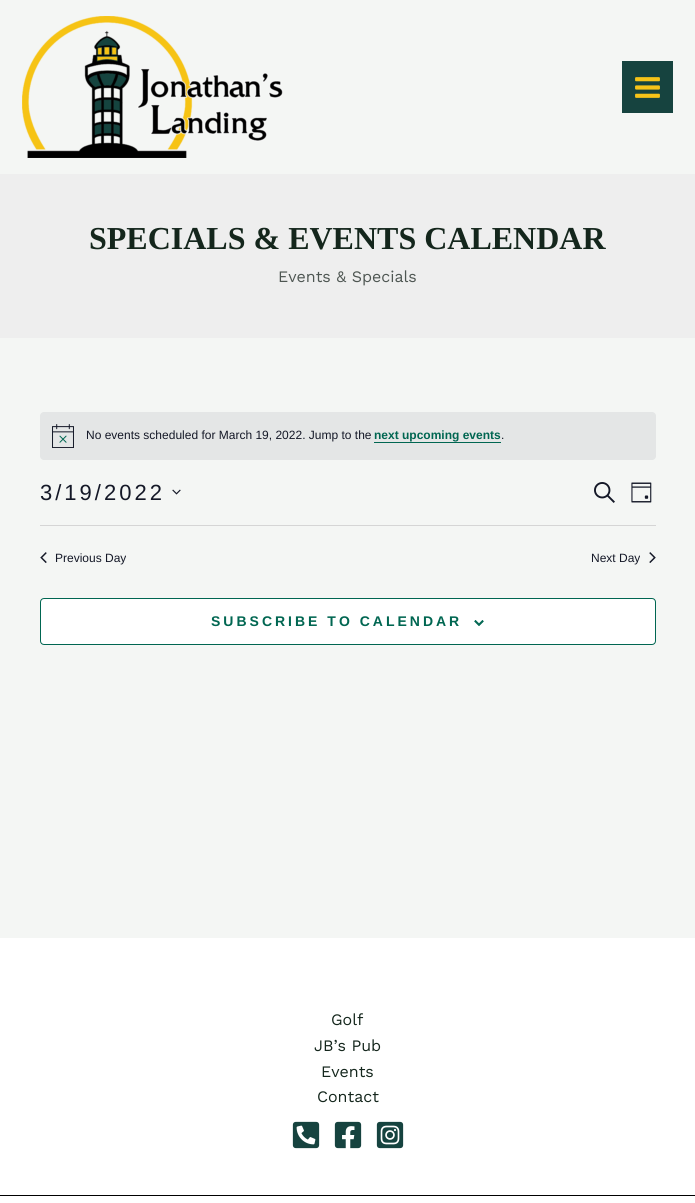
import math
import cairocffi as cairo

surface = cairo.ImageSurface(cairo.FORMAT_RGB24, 695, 1203)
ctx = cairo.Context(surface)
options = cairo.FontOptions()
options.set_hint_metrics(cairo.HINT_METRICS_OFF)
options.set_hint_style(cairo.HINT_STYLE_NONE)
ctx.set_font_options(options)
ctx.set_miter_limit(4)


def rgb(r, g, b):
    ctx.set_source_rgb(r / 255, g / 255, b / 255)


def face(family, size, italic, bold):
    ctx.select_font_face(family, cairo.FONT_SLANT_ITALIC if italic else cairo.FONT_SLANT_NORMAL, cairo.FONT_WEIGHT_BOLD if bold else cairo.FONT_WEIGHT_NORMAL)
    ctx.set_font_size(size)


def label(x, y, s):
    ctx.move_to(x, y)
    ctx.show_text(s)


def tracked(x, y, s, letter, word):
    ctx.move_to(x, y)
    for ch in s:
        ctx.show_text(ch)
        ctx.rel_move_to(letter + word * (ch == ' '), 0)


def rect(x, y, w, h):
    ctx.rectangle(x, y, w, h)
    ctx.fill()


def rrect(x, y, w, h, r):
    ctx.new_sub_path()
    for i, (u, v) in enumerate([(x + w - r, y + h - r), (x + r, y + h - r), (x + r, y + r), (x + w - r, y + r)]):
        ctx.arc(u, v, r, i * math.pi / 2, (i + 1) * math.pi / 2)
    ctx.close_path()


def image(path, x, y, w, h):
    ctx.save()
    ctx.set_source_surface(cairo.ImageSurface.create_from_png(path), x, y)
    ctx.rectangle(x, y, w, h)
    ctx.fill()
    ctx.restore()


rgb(244, 246, 244)
ctx.paint()
image('image0.png', 22, 16, 261, 142)
rgb(22, 67, 63)
rect(622, 61, 51, 52)
image('image1.png', 635, 77, 25, 21)
rgb(238, 238, 238)
rect(0, 174, 695, 164)
face('Liberation Serif', 32, 0, 1)
rgb(20, 38, 28)
label(89, 249, 'SPECIALS & EVENTS CALENDAR')
face('Work Sans', 16, 0, 0)
rgb(78, 86, 82)
label(278, 282, 'Events & Specials')
rgb(228, 230, 230)
rrect(40, 412, 616, 48, 4)
ctx.fill()
image('image2.png', 52, 424, 22, 24)
face('Liberation Sans', 12, 0, 0)
rgb(20, 24, 39)
label(86, 439, 'No events scheduled for March 19, 2022. Jump to the')
face('Liberation Sans', 12, 0, 1)
rgb(0, 102, 81)
label(374, 439, 'next upcoming events')
rect(374, 442, 127, 1)
face('Liberation Sans', 12, 0, 0)
rgb(20, 24, 39)
label(501, 439, '.')
face('Liberation Sans', 22, 0, 0)
tracked(40, 500, '3/19/2022', 3, 0)
image('image3.png', 172, 489, 9, 6)
image('image4.png', 594, 482, 21, 21)
image('image5.png', 631, 482, 21, 21)
rgb(213, 213, 213)
rect(40, 525, 616, 1)
image('image6.png', 40, 552, 7, 11)
face('Liberation Sans', 12, 0, 0)
rgb(20, 24, 39)
label(55, 562, 'Previous Day')
label(591, 562, 'Next Day')
image('image7.png', 649, 552, 7, 11)
rgb(255, 255, 255)
rrect(40.5, 598.5, 615, 46, 3.5)
ctx.fill_preserve()
rgb(0, 102, 81)
ctx.set_line_width(1)
ctx.stroke()
face('Liberation Sans', 14, 0, 1)
tracked(211, 626, 'SUBSCRIBE TO CALENDAR', 3, 0)
image('image8.png', 474, 620, 10, 6)
rgb(255, 255, 255)
rect(0, 938, 695, 257)
face('Work Sans', 16, 0, 0)
rgb(20, 38, 28)
label(331, 1025, 'Golf')
label(314, 1051, 'JB’s Pub')
label(321, 1077, 'Events')
label(317, 1102, 'Contact')
image('image9.png', 292, 1121, 28, 28)
image('image10.png', 334, 1121, 28, 28)
image('image11.png', 376, 1121, 28, 28)
rgb(255, 255, 255)
rect(0, 1196, 695, 7)
rgb(0, 0, 0)
rect(0, 1195, 695, 1)
surface.write_to_png('render.png')
